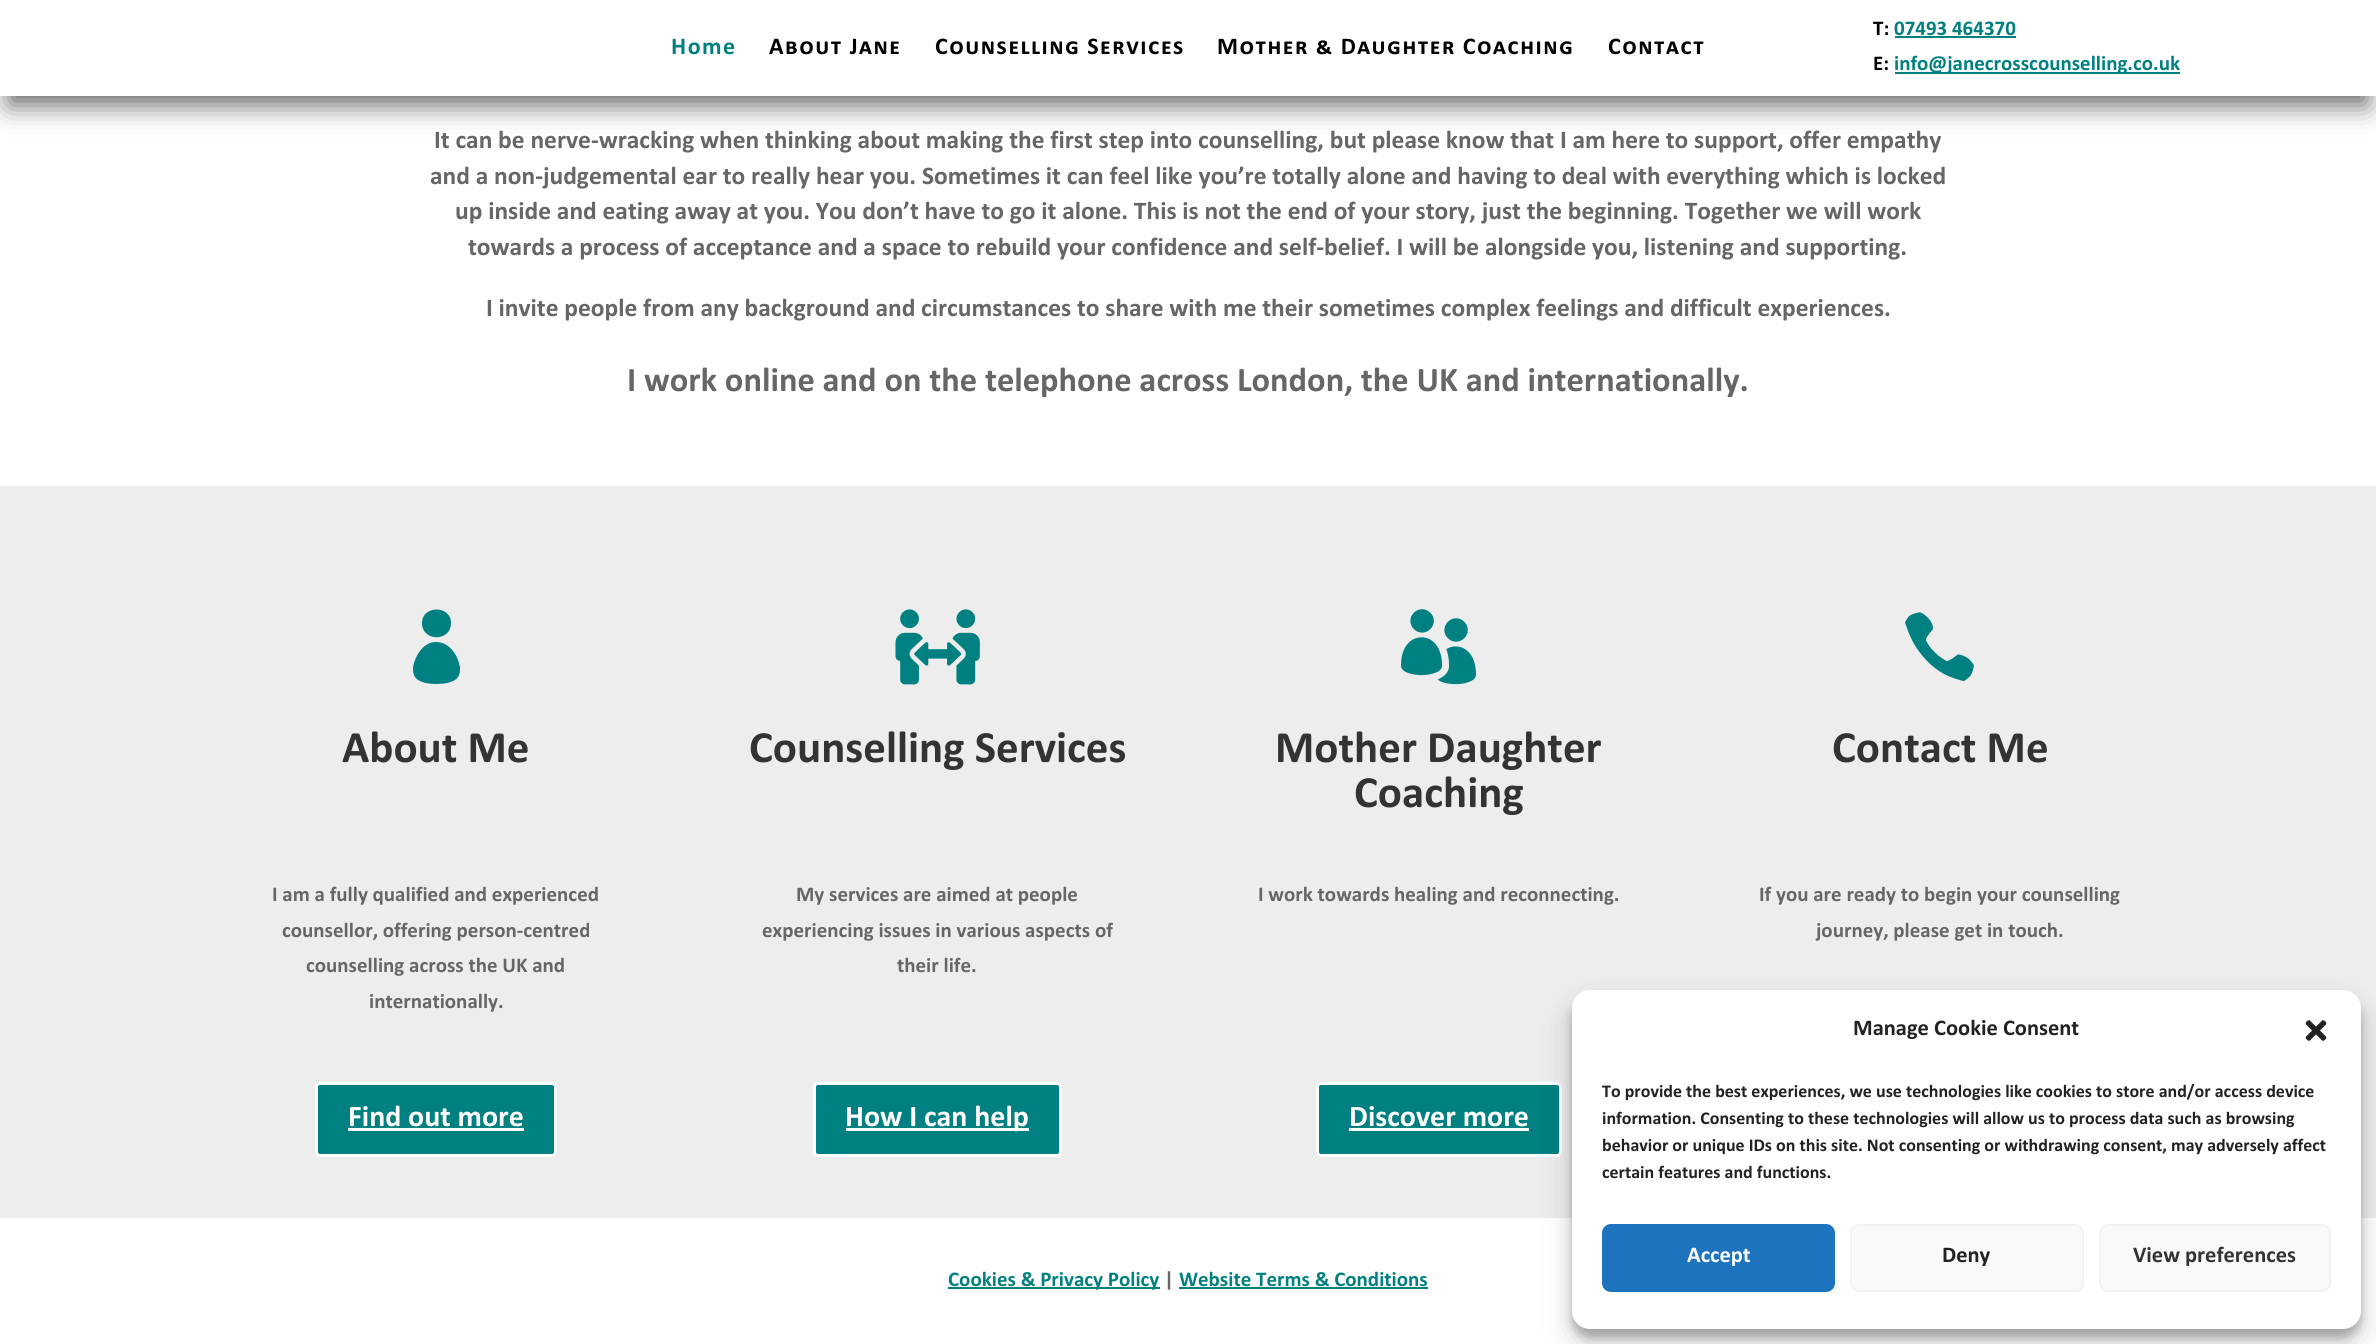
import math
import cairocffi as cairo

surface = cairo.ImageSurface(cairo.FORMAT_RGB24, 2376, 1344)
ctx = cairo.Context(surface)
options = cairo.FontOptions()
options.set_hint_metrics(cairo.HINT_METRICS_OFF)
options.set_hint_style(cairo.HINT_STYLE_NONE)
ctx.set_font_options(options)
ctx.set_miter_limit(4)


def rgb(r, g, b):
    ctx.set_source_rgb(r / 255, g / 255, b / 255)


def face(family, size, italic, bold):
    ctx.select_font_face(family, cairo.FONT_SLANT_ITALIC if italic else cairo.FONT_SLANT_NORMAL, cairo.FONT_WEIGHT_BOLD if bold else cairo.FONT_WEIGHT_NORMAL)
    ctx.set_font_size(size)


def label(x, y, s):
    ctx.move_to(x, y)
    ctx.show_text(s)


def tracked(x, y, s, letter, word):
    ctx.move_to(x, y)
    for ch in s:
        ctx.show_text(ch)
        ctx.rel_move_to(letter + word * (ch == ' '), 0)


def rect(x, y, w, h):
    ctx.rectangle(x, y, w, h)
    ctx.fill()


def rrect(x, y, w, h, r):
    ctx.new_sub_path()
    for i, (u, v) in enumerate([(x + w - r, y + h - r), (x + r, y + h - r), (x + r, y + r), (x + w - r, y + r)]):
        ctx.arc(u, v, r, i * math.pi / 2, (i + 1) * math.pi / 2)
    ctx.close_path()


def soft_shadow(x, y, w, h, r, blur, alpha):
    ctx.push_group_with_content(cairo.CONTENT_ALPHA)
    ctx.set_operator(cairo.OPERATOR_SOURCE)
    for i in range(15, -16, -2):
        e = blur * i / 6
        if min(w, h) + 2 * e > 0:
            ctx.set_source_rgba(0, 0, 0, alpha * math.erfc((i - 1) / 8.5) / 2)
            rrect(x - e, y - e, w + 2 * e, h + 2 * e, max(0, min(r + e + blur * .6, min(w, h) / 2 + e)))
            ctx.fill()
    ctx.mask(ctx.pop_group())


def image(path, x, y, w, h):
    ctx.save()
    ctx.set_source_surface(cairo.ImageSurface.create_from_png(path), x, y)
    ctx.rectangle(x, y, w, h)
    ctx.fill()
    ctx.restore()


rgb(255, 255, 255)
ctx.paint()
rgb(0, 0, 0)
soft_shadow(9, 27, 2358, 78, 0, 13.5, 0.6)
rgb(255, 255, 255)
rect(0, 0, 2376, 96)
face('Calibri', 24, 0, 1)
rgb(0, 128, 128)
tracked(671, 54, 'Home', 1.5, 0)
face('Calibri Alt', 24, 0, 1)
rgb(0, 0, 0)
tracked(769, 54, 'About Jane', 1.5, 0)
tracked(935, 54, 'Counselling Services', 1.5, 0)
tracked(1217, 54, 'Mother & Daughter Coaching', 1.5, 0)
tracked(1608, 54, 'Contact', 1.5, 0)
face('Calibri', 21, 0, 1)
label(1873, 35, 'T:')
rgb(0, 128, 128)
label(1894, 35, '07493 464370')
rect(1895, 36, 121, 2)
rgb(0, 0, 0)
label(1873, 70, 'E:')
rgb(0, 128, 128)
rect(1895, 72, 285, 2)
label(1894, 70, 'info@janecrosscounselling.co.uk')
face('Calibri', 25.5, 0, 1)
rgb(102, 102, 102)
label(434, 148, 'It can be nerve-wracking when thinking about making the first step into counselling, but please know that I am here to support, offer empathy')
label(430, 184, 'and a non-judgemental ear to really hear you. Sometimes it can feel like you’re totally alone and having to deal with everything which is locked')
label(455, 219, 'up inside and eating away at you. You don’t have to go it alone. This is not the end of your story, just the beginning. Together we will work')
label(468, 255, 'towards a process of acceptance and a space to rebuild your confidence and self-belief. I will be alongside you, listening and supporting.')
label(486, 316, 'I invite people from any background and circumstances to share with me their sometimes complex feelings and difficult experiences.')
face('Calibri', 34.5, 0, 1)
label(627, 391, 'I work online and on the telephone across London, the UK and internationally.')
rgb(237, 237, 237)
rect(0, 486, 2376, 732)
rgb(0, 128, 128)
ctx.new_path()
ctx.move_to(451, 623)
ctx.curve_to(451, 605, 422, 605, 422, 623)
ctx.curve_to(422, 642, 451, 642, 451, 623)
ctx.close_path()
ctx.move_to(436, 642)
ctx.curve_to(423, 642, 415, 656, 413, 667)
ctx.curve_to(413, 671, 413, 674, 415, 677)
ctx.curve_to(419, 683, 430, 684, 436, 684)
ctx.curve_to(443, 684, 454, 683, 458, 677)
ctx.curve_to(460, 674, 460, 671, 460, 667)
ctx.curve_to(458, 656, 450, 642, 436, 642)
ctx.close_path()
ctx.fill()
face('Calibri', 45, 0, 1)
rgb(51, 51, 51)
label(342, 762, 'About Me')
face('Calibri', 21, 0, 1)
rgb(102, 102, 102)
label(272, 901, 'I am a fully qualified and experienced')
label(282, 937, 'counsellor, offering person-centred')
label(306, 972, 'counselling across the UK and')
label(369, 1008, 'internationally.')
rgb(0, 128, 128)
rrect(316.5, 1083.5, 239, 72, 3.5)
ctx.fill_preserve()
rgb(255, 255, 255)
ctx.set_line_width(3)
ctx.stroke()
face('Calibri', 30, 0, 1)
label(348, 1126, 'Find out more')
rect(348, 1128, 176, 3)
image('image0.png', 895, 609, 85, 76)
face('Calibri', 45, 0, 1)
rgb(51, 51, 51)
label(749, 762, 'Counselling Services')
face('Calibri', 21, 0, 1)
rgb(102, 102, 102)
label(796, 901, 'My services are aimed at people')
label(762, 937, 'experiencing issues in various aspects of')
label(897, 972, 'their life.')
rgb(0, 128, 128)
rrect(814.5, 1083.5, 246, 72, 3.5)
ctx.fill_preserve()
rgb(255, 255, 255)
ctx.stroke()
rect(846, 1128, 183, 3)
face('Calibri', 30, 0, 1)
label(845, 1126, 'How I can help')
image('image1.png', 1401, 609, 75, 76)
face('Calibri', 45, 0, 1)
rgb(51, 51, 51)
label(1275, 762, 'Mother Daughter')
label(1354, 807, 'Coaching')
face('Calibri', 21, 0, 1)
rgb(102, 102, 102)
label(1258, 901, 'I work towards healing and reconnecting.')
rgb(0, 128, 128)
rrect(1317.5, 1083.5, 243, 72, 3.5)
ctx.fill_preserve()
rgb(255, 255, 255)
ctx.stroke()
face('Calibri', 30, 0, 1)
label(1349, 1126, 'Discover more')
rect(1349, 1128, 180, 3)
image('image2.png', 1905, 612, 69, 70)
face('Calibri', 45, 0, 1)
rgb(51, 51, 51)
label(1832, 762, 'Contact Me')
face('Calibri', 21, 0, 1)
rgb(102, 102, 102)
label(1759, 901, 'If you are ready to begin your counselling')
label(1816, 937, 'journey, please get in touch.')
rgb(0, 128, 128)
rect(948, 1287, 212, 2)
label(948, 1286, 'Cookies & Privacy Policy')
rgb(102, 102, 102)
label(1164, 1286, '|')
rgb(0, 128, 128)
label(1179, 1286, 'Website Terms & Conditions')
rect(1179, 1287, 249, 2)
rgb(0, 0, 0)
soft_shadow(1572, 999, 789, 339, 18, 4.5, 0.23)
soft_shadow(1572, 1005, 789, 339, 18, 15, 0.19)
rgb(255, 255, 255)
rrect(1572, 990, 789, 339, 18)
ctx.fill()
face('Calibri', 22.5, 0, 1)
rgb(34, 34, 34)
label(1853, 1035, 'Manage Cookie Consent')
image('image3.png', 2305, 1020, 22, 21)
face('Calibri', 18, 0, 1)
label(1602, 1097, 'To provide the best experiences, we use technologies like cookies to store and/or access device')
label(1602, 1124, 'information. Consenting to these technologies will allow us to process data such as browsing')
label(1602, 1151, 'behavior or unique IDs on this site. Not consenting or withdrawing consent, may adversely affect')
label(1602, 1178, 'certain features and functions.')
rgb(30, 115, 190)
rrect(1603, 1225, 231, 66, 8)
ctx.fill_preserve()
ctx.set_line_width(2)
ctx.stroke()
face('Calibri', 22.5, 0, 1)
rgb(255, 255, 255)
label(1687, 1262, 'Accept')
rgb(249, 249, 249)
rrect(1851, 1225, 232, 66, 8)
ctx.fill_preserve()
rgb(242, 242, 242)
ctx.stroke()
rgb(34, 34, 34)
label(1942, 1262, 'Deny')
rgb(249, 249, 249)
rrect(2100, 1225, 230, 66, 8)
ctx.fill_preserve()
rgb(242, 242, 242)
ctx.stroke()
rgb(51, 51, 51)
label(2133, 1262, 'View preferences')
surface.write_to_png('render.png')
